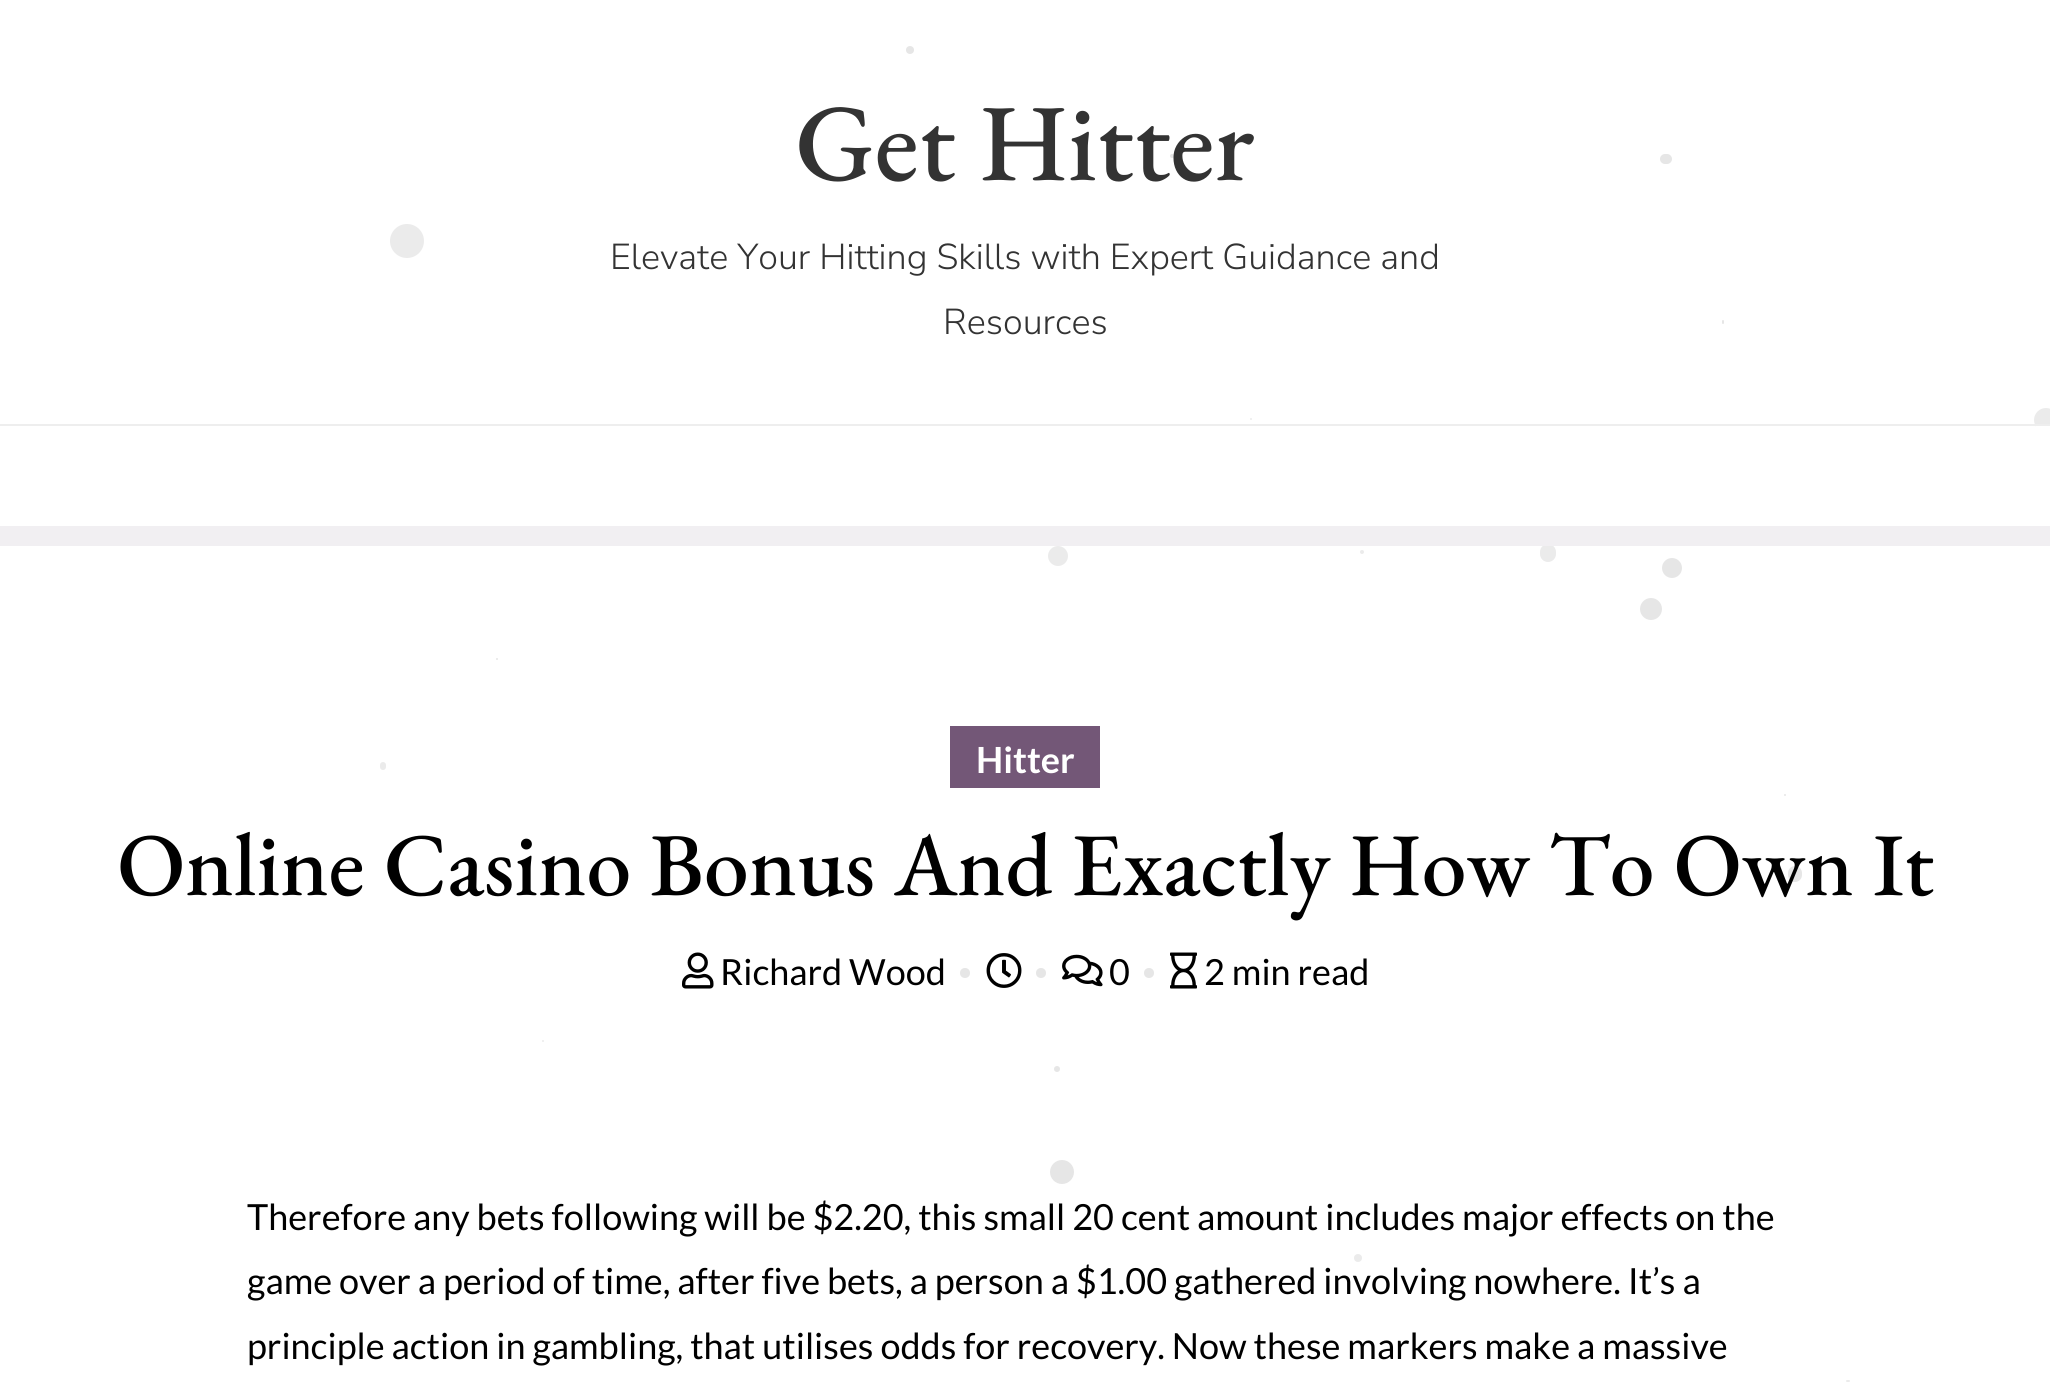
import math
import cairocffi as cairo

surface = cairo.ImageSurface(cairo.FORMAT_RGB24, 2050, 1391)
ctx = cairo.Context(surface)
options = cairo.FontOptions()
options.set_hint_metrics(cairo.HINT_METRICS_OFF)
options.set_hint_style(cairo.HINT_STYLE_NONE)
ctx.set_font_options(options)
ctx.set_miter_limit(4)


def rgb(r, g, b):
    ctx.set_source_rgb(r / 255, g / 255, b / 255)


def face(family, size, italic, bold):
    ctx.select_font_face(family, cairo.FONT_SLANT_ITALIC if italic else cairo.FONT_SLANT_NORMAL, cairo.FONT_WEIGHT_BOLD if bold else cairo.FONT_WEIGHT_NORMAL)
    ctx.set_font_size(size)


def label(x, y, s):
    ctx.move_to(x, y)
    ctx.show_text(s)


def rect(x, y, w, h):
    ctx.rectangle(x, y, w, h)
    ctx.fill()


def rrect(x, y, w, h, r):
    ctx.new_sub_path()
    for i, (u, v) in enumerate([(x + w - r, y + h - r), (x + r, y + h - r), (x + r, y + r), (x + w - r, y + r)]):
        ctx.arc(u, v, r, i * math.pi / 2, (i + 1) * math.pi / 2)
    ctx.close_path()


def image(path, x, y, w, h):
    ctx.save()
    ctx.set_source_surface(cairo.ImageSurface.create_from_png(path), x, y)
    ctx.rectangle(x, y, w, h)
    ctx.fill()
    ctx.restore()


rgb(255, 255, 255)
ctx.paint()
rgb(230, 230, 230)
ctx.arc(910, 50, 4, 0, 2 * math.pi)
ctx.fill()
ctx.arc(1172, 156, 2, 0, 2 * math.pi)
ctx.fill()
rrect(1660, 154, 12, 10, 5)
ctx.fill()
rgb(235, 235, 235)
ctx.arc(407, 241, 17, 0, 2 * math.pi)
ctx.fill()
rgb(230, 230, 230)
rrect(1722, 320, 2, 4, 1)
ctx.fill()
rgb(235, 235, 235)
ctx.arc(1251, 419, 1, 0, 2 * math.pi)
ctx.fill()
ctx.arc(2046, 420, 12, 0, 2 * math.pi)
ctx.fill()
ctx.arc(1058, 556, 10, 0, 2 * math.pi)
ctx.fill()
ctx.arc(1362, 552, 2, 0, 2 * math.pi)
ctx.fill()
rrect(1540, 544, 16, 18, 8)
ctx.fill()
rgb(230, 230, 230)
ctx.arc(1672, 568, 10, 0, 2 * math.pi)
ctx.fill()
ctx.arc(1651, 609, 11, 0, 2 * math.pi)
ctx.fill()
ctx.arc(497, 659, 1, 0, 2 * math.pi)
ctx.fill()
rgb(235, 235, 235)
rrect(380, 762, 6, 8, 3)
ctx.fill()
rgb(230, 230, 230)
ctx.arc(1785, 795, 1, 0, 2 * math.pi)
ctx.fill()
rrect(1788, 866, 14, 16, 7)
ctx.fill()
rgb(235, 235, 235)
ctx.arc(543, 1041, 1, 0, 2 * math.pi)
ctx.fill()
rgb(230, 230, 230)
ctx.arc(1057, 1069, 3, 0, 2 * math.pi)
ctx.fill()
ctx.arc(1062, 1172, 12, 0, 2 * math.pi)
ctx.fill()
rgb(235, 235, 235)
ctx.arc(1358, 1258, 4, 0, 2 * math.pi)
ctx.fill()
rrect(1846, 1380, 4, 2, 1)
ctx.fill()
rgb(241, 239, 242)
rect(0, 526, 2050, 20)
rgb(238, 238, 238)
rect(0, 424, 2050, 2)
face('EB Garamond Medium', 110, 0, 0)
rgb(51, 51, 51)
label(795, 180, 'Get Hitter')
face('Nunito Sans Light', 36, 0, 0)
label(610, 269, 'Elevate Your Hitting Skills with Expert Guidance and')
label(943, 334, 'Resources')
rgb(255, 255, 255)
rect(2036, 426, 14, 6)
rgb(115, 87, 119)
rect(950, 726, 150, 62)
face('Lato', 36, 0, 1)
rgb(255, 255, 255)
label(976, 773, 'Hitter')
face('EB Garamond Medium', 89.6, 0, 0)
rgb(0, 0, 0)
label(117, 895, 'Online Casino Bonus And Exactly How To Own It')
image('image0.png', 682, 952, 32, 37)
face('Lato', 36, 0, 0)
label(720, 985, 'Richard Wood')
rgb(230, 230, 230)
ctx.new_path()
ctx.arc(965, 973, 5, 0, 2 * math.pi)
ctx.fill()
image('image1.png', 986, 953, 36, 35)
ctx.arc(1041, 973, 5, 0, 2 * math.pi)
ctx.fill()
image('image2.png', 1062, 954, 41, 33)
rgb(0, 0, 0)
label(1109, 985, '0')
rgb(230, 230, 230)
ctx.new_path()
ctx.arc(1149, 973, 5, 0, 2 * math.pi)
ctx.fill()
image('image3.png', 1170, 952, 27, 37)
rgb(0, 0, 0)
label(1204, 985, '2 min read')
label(247, 1230, 'Therefore any bets following will be $2.20, this small 20 cent amount includes major effects on the')
label(247, 1294, 'game over a period of time, after five bets, a person a $1.00 gathered involving nowhere. It’s a')
label(247, 1359, 'principle action in gambling, that utilises odds for recovery. Now these markers make a massive')
surface.write_to_png('render.png')
